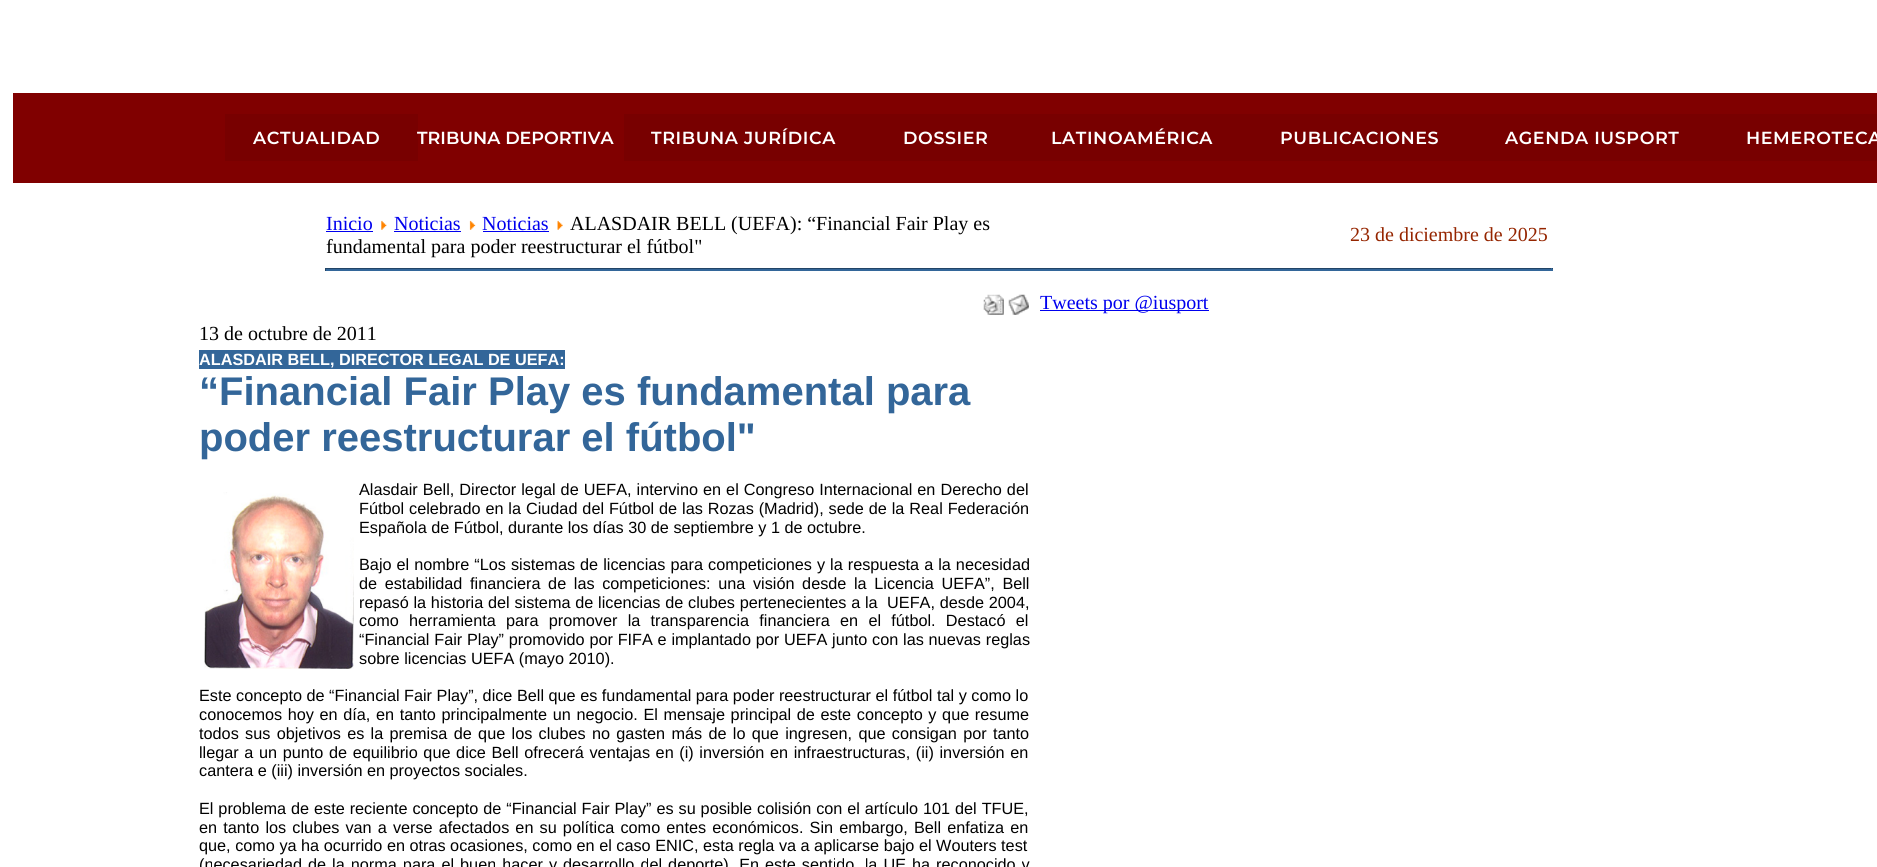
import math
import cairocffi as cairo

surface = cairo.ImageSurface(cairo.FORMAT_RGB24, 1877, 867)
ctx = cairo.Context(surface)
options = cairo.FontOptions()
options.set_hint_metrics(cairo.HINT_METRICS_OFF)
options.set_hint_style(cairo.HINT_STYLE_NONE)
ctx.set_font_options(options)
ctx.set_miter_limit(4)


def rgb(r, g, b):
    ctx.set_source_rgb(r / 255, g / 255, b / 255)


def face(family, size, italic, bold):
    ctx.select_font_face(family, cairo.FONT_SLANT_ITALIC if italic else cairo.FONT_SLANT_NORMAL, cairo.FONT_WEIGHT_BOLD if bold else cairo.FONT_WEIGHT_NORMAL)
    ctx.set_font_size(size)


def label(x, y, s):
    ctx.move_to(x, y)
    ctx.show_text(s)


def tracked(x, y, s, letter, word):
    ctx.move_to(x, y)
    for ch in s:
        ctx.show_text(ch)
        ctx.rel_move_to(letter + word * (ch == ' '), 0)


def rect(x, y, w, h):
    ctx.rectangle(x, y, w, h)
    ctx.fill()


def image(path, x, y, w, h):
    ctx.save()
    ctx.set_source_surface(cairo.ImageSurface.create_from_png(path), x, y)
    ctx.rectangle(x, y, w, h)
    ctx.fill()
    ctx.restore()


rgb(255, 255, 255)
ctx.paint()
rgb(128, 0, 0)
rect(13, 93, 1864, 90)
rgb(120, 0, 0)
rect(225, 114, 193, 47)
face('Montserrat SemiBold', 17.5, 0, 0)
rgb(255, 255, 255)
tracked(253, 144, 'ACTUALIDAD', 0.6, 0)
label(417, 144, 'TRIBUNA DEPORTIVA')
rgb(120, 0, 0)
rect(624, 114, 1253, 47)
rgb(255, 255, 255)
tracked(651, 144, 'TRIBUNA JURÍDICA', 0.6, 0)
tracked(903, 144, 'DOSSIER', 0.6, 0)
tracked(1051, 144, 'LATINOAMÉRICA', 0.6, 0)
tracked(1280, 144, 'PUBLICACIONES', 0.6, 0)
tracked(1505, 144, 'AGENDA IUSPORT', 0.6, 0)
tracked(1746, 144, 'HEMEROTECA', 0.6, 0)
face('Liberation Serif', 20, 0, 0)
rgb(0, 0, 238)
label(326, 230, 'Inicio')
rect(326, 231, 47, 1)
image('image0.png', 381, 220, 6, 10)
label(394, 230, 'Noticias')
rect(394, 231, 67, 1)
image('image1.png', 469, 220, 7, 10)
label(482, 230, 'Noticias')
rect(483, 231, 66, 1)
image('image2.png', 557, 220, 6, 10)
rgb(0, 0, 0)
label(570, 230, 'ALASDAIR BELL (UEFA): “Financial Fair Play es')
label(326, 253, 'fundamental para poder reestructurar el fútbol"')
rgb(149, 37, 0)
label(1350, 241, '23 de diciembre de 2025')
rgb(51, 102, 153)
rect(325, 269, 1228, 2)
rgb(34, 68, 102)
rect(325, 268, 1228, 1)
rgb(51, 102, 153)
rect(1551, 268, 1, 3)
rgb(34, 68, 102)
rect(325, 268, 1, 3)
rgb(0, 0, 238)
rect(1040, 310, 169, 1)
label(1040, 309, 'Tweets por @iusport')
image('image3.png', 983, 294, 21, 21)
image('image4.png', 1008, 294, 21, 21)
rgb(0, 0, 0)
label(199, 340, '13 de octubre de 2011')
rgb(51, 102, 153)
rect(199, 350, 366, 19)
face('Liberation Sans', 16.25, 0, 1)
rgb(255, 255, 255)
label(199, 365, 'ALASDAIR BELL, DIRECTOR LEGAL DE UEFA:')
face('Liberation Sans', 40, 0, 1)
rgb(51, 102, 153)
label(199, 405, '“Financial Fair Play es fundamental para')
label(199, 451, 'poder reestructurar el fútbol"')
image('image5.png', 204, 492, 150, 177)
face('Liberation Sans', 16.25, 0, 0)
rgb(0, 0, 0)
tracked(359, 495, 'Alasdair Bell, Director legal de UEFA, intervino en el Congreso Internacional en Derecho del', 0, 0.5)
tracked(359, 514, 'Fútbol celebrado en la Ciudad del Fútbol de las Rozas (Madrid), sede de la Real Federación', 0, 0.4)
label(359, 533, 'Española de Fútbol, durante los días 30 de septiembre y 1 de octubre.')
tracked(359, 570, 'Bajo el nombre “Los sistemas de licencias para competiciones y la respuesta a la necesidad', 0, 0.5)
tracked(359, 589, 'de estabilidad financiera de las competiciones: una visión desde la Licencia UEFA”, Bell', 0, 3.1)
tracked(359, 608, 'repasó la historia del sistema de licencias de clubes pertenecientes a la  UEFA, desde 2004,', 0, 0.25)
tracked(359, 626, 'como herramienta para promover la transparencia financiera en el fútbol. Destacó el', 0, 5.75)
tracked(359, 645, '“Financial Fair Play” promovido por FIFA e implantado por UEFA junto con las nuevas reglas', 0, 0.25)
label(359, 664, 'sobre licencias UEFA (mayo 2010).')
label(199, 701, 'Este concepto de “Financial Fair Play”, dice Bell que es fundamental para poder reestructurar el fútbol tal y como lo')
tracked(199, 720, 'conocemos hoy en día, en tanto principalmente un negocio. El mensaje principal de este concepto y que resume', 0, 1.1)
tracked(199, 739, 'todos sus objetivos es la premisa de que los clubes no gasten más de lo que ingresen, que consigan por tanto', 0, 1.8)
tracked(199, 758, 'llegar a un punto de equilibrio que dice Bell ofrecerá ventajas en (i) inversión en infraestructuras, (ii) inversión en', 0, 1.1)
label(199, 776, 'cantera e (iii) inversión en proyectos sociales.')
tracked(199, 814, 'El problema de este reciente concepto de “Financial Fair Play” es su posible colisión con el artículo 101 del TFUE,', 0, 0.4)
tracked(199, 833, 'en tanto los clubes van a verse afectados en su política como entes económicos. Sin embargo, Bell enfatiza en', 0, 1.6)
label(199, 851, 'que, como ya ha ocurrido en otras ocasiones, como en el caso ENIC, esta regla va a aplicarse bajo el Wouters test')
tracked(199, 870, '(necesariedad de la norma para el buen hacer y desarrollo del deporte). En este sentido, la UE ha reconocido y', 0, 1.5)
surface.write_to_png('render.png')
